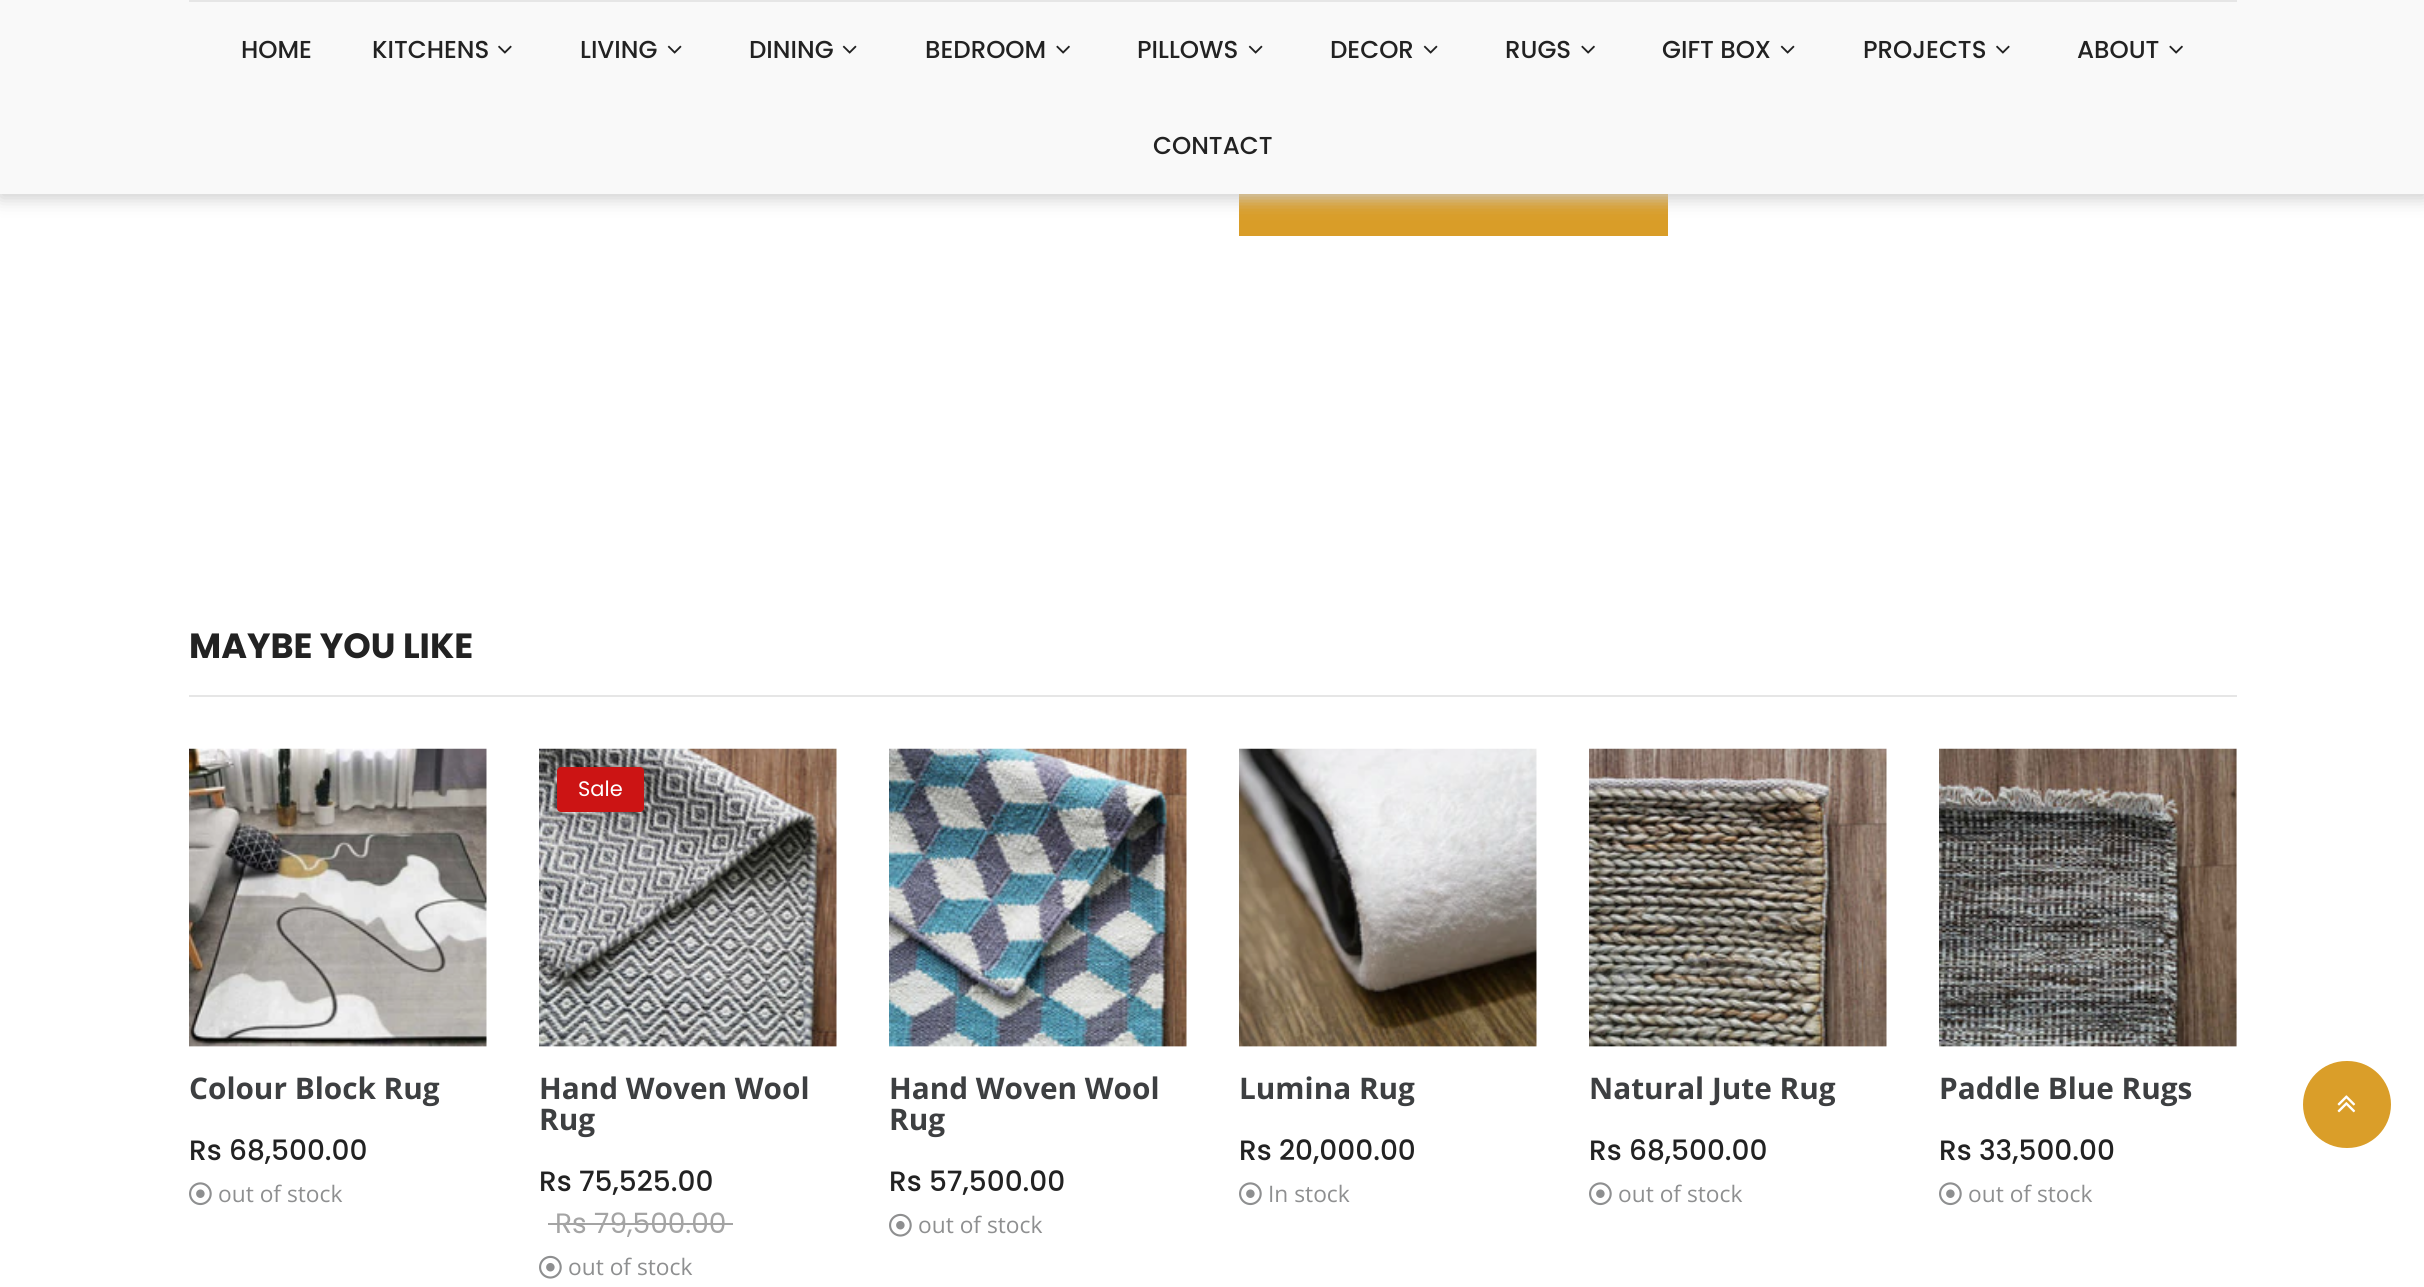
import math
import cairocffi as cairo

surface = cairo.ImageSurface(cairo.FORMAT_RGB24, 2424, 1287)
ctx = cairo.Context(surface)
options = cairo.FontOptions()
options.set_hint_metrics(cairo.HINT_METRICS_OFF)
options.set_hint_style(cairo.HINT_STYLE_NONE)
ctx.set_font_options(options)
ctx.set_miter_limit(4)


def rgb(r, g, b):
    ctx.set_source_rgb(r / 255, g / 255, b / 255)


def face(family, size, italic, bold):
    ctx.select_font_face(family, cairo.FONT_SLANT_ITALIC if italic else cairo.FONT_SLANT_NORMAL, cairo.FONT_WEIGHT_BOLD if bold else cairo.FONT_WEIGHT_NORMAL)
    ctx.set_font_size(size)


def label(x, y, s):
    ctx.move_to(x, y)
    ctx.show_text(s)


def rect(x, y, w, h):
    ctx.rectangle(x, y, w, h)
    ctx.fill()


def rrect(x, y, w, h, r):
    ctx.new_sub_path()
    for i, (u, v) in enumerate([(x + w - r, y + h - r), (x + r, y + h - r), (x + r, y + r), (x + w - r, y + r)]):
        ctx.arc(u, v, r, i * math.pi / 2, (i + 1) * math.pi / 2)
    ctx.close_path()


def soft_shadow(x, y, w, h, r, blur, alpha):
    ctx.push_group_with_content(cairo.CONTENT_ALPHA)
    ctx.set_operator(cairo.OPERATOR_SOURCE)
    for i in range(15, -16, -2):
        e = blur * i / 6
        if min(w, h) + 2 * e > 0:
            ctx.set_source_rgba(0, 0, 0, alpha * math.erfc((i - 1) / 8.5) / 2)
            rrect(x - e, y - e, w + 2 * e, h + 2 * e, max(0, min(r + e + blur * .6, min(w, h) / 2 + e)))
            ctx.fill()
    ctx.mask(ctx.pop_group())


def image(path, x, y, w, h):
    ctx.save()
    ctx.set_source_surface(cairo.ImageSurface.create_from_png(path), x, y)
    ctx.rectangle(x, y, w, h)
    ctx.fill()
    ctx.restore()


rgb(255, 255, 255)
ctx.paint()
rgb(217, 157, 40)
rect(1239, 194, 429, 42)
rgb(204, 204, 204)
soft_shadow(0, 4, 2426, 194, 0, 9, 1)
rgb(249, 249, 249)
rect(0, 0, 2424, 194)
rgb(230, 230, 230)
rect(189, 0, 2048, 2)
face('Poppins Medium', 24.5, 0, 0)
rgb(34, 34, 34)
label(241, 58, 'HOME')
label(372, 58, 'KITCHENS')
image('image0.png', 498, 45, 14, 9)
label(580, 58, 'LIVING')
image('image1.png', 667, 45, 15, 9)
label(749, 58, 'DINING')
image('image1.png', 842, 45, 15, 9)
label(925, 58, 'BEDROOM')
image('image2.png', 1056, 45, 14, 9)
label(1137, 58, 'PILLOWS')
image('image1.png', 1248, 45, 15, 9)
label(1330, 58, 'DECOR')
image('image1.png', 1423, 45, 15, 9)
label(1505, 58, 'RUGS')
image('image2.png', 1581, 45, 14, 9)
label(1662, 58, 'GIFT BOX')
image('image1.png', 1780, 45, 15, 9)
label(1863, 58, 'PROJECTS')
image('image0.png', 1996, 45, 14, 9)
label(2077, 58, 'ABOUT')
image('image2.png', 2169, 45, 14, 9)
label(1153, 154, 'CONTACT')
face('Poppins', 35, 0, 1)
label(189, 658, 'MAYBE YOU LIKE')
rgb(230, 230, 230)
rect(189, 695, 2048, 2)
image('image3.png', 189, 748, 298, 299)
face('Open Sans', 29.75, 0, 1)
rgb(61, 63, 65)
label(189, 1099, 'Colour Block Rug')
face('Poppins Medium', 28, 0, 0)
rgb(34, 34, 34)
label(189, 1160, 'Rs 68,500.00')
image('image4.png', 189, 1182, 23, 24)
face('Open Sans', 22.75, 0, 0)
rgb(142, 143, 144)
label(218, 1202, 'out of stock')
image('image5.png', 539, 748, 298, 299)
rgb(204, 20, 20)
rrect(557, 767, 87, 45, 4)
ctx.fill()
face('Poppins', 21, 0, 0)
rgb(255, 255, 255)
label(578, 796, 'Sale')
face('Open Sans', 29.75, 0, 1)
rgb(61, 63, 65)
label(539, 1099, 'Hand Woven Wool')
label(539, 1130, 'Rug')
face('Poppins Medium', 28, 0, 0)
rgb(34, 34, 34)
label(539, 1191, 'Rs 75,525.00')
face('Poppins', 28, 0, 0)
rgb(164, 164, 164)
label(555, 1233, 'Rs 79,500.00')
rect(548, 1223, 185, 2)
image('image6.png', 539, 1255, 23, 24)
face('Open Sans', 22.75, 0, 0)
rgb(142, 143, 144)
label(568, 1275, 'out of stock')
image('image7.png', 889, 748, 298, 299)
face('Open Sans', 29.75, 0, 1)
rgb(61, 63, 65)
label(889, 1099, 'Hand Woven Wool')
label(889, 1130, 'Rug')
face('Poppins Medium', 28, 0, 0)
rgb(34, 34, 34)
label(889, 1191, 'Rs 57,500.00')
image('image6.png', 889, 1213, 23, 24)
face('Open Sans', 22.75, 0, 0)
rgb(142, 143, 144)
label(918, 1233, 'out of stock')
image('image8.png', 1239, 748, 298, 299)
face('Open Sans', 29.75, 0, 1)
rgb(61, 63, 65)
label(1239, 1099, 'Lumina Rug')
face('Poppins Medium', 28, 0, 0)
rgb(34, 34, 34)
label(1239, 1160, 'Rs 20,000.00')
image('image4.png', 1239, 1182, 23, 24)
face('Open Sans', 22.75, 0, 0)
rgb(142, 143, 144)
label(1268, 1202, 'In stock')
image('image9.png', 1589, 748, 298, 299)
face('Open Sans', 29.75, 0, 1)
rgb(61, 63, 65)
label(1589, 1099, 'Natural Jute Rug')
face('Poppins Medium', 28, 0, 0)
rgb(34, 34, 34)
label(1589, 1160, 'Rs 68,500.00')
image('image4.png', 1589, 1182, 23, 24)
face('Open Sans', 22.75, 0, 0)
rgb(142, 143, 144)
label(1618, 1202, 'out of stock')
image('image10.png', 1939, 748, 298, 299)
face('Open Sans', 29.75, 0, 1)
rgb(61, 63, 65)
label(1939, 1099, 'Paddle Blue Rugs')
face('Poppins Medium', 28, 0, 0)
rgb(34, 34, 34)
label(1939, 1160, 'Rs 33,500.00')
image('image4.png', 1939, 1182, 23, 24)
face('Open Sans', 22.75, 0, 0)
rgb(142, 143, 144)
label(1968, 1202, 'out of stock')
rgb(218, 158, 41)
rrect(2303, 1061, 88, 87, 43.5)
ctx.fill()
image('image11.png', 2337, 1095, 19, 18)
surface.write_to_png('render.png')
